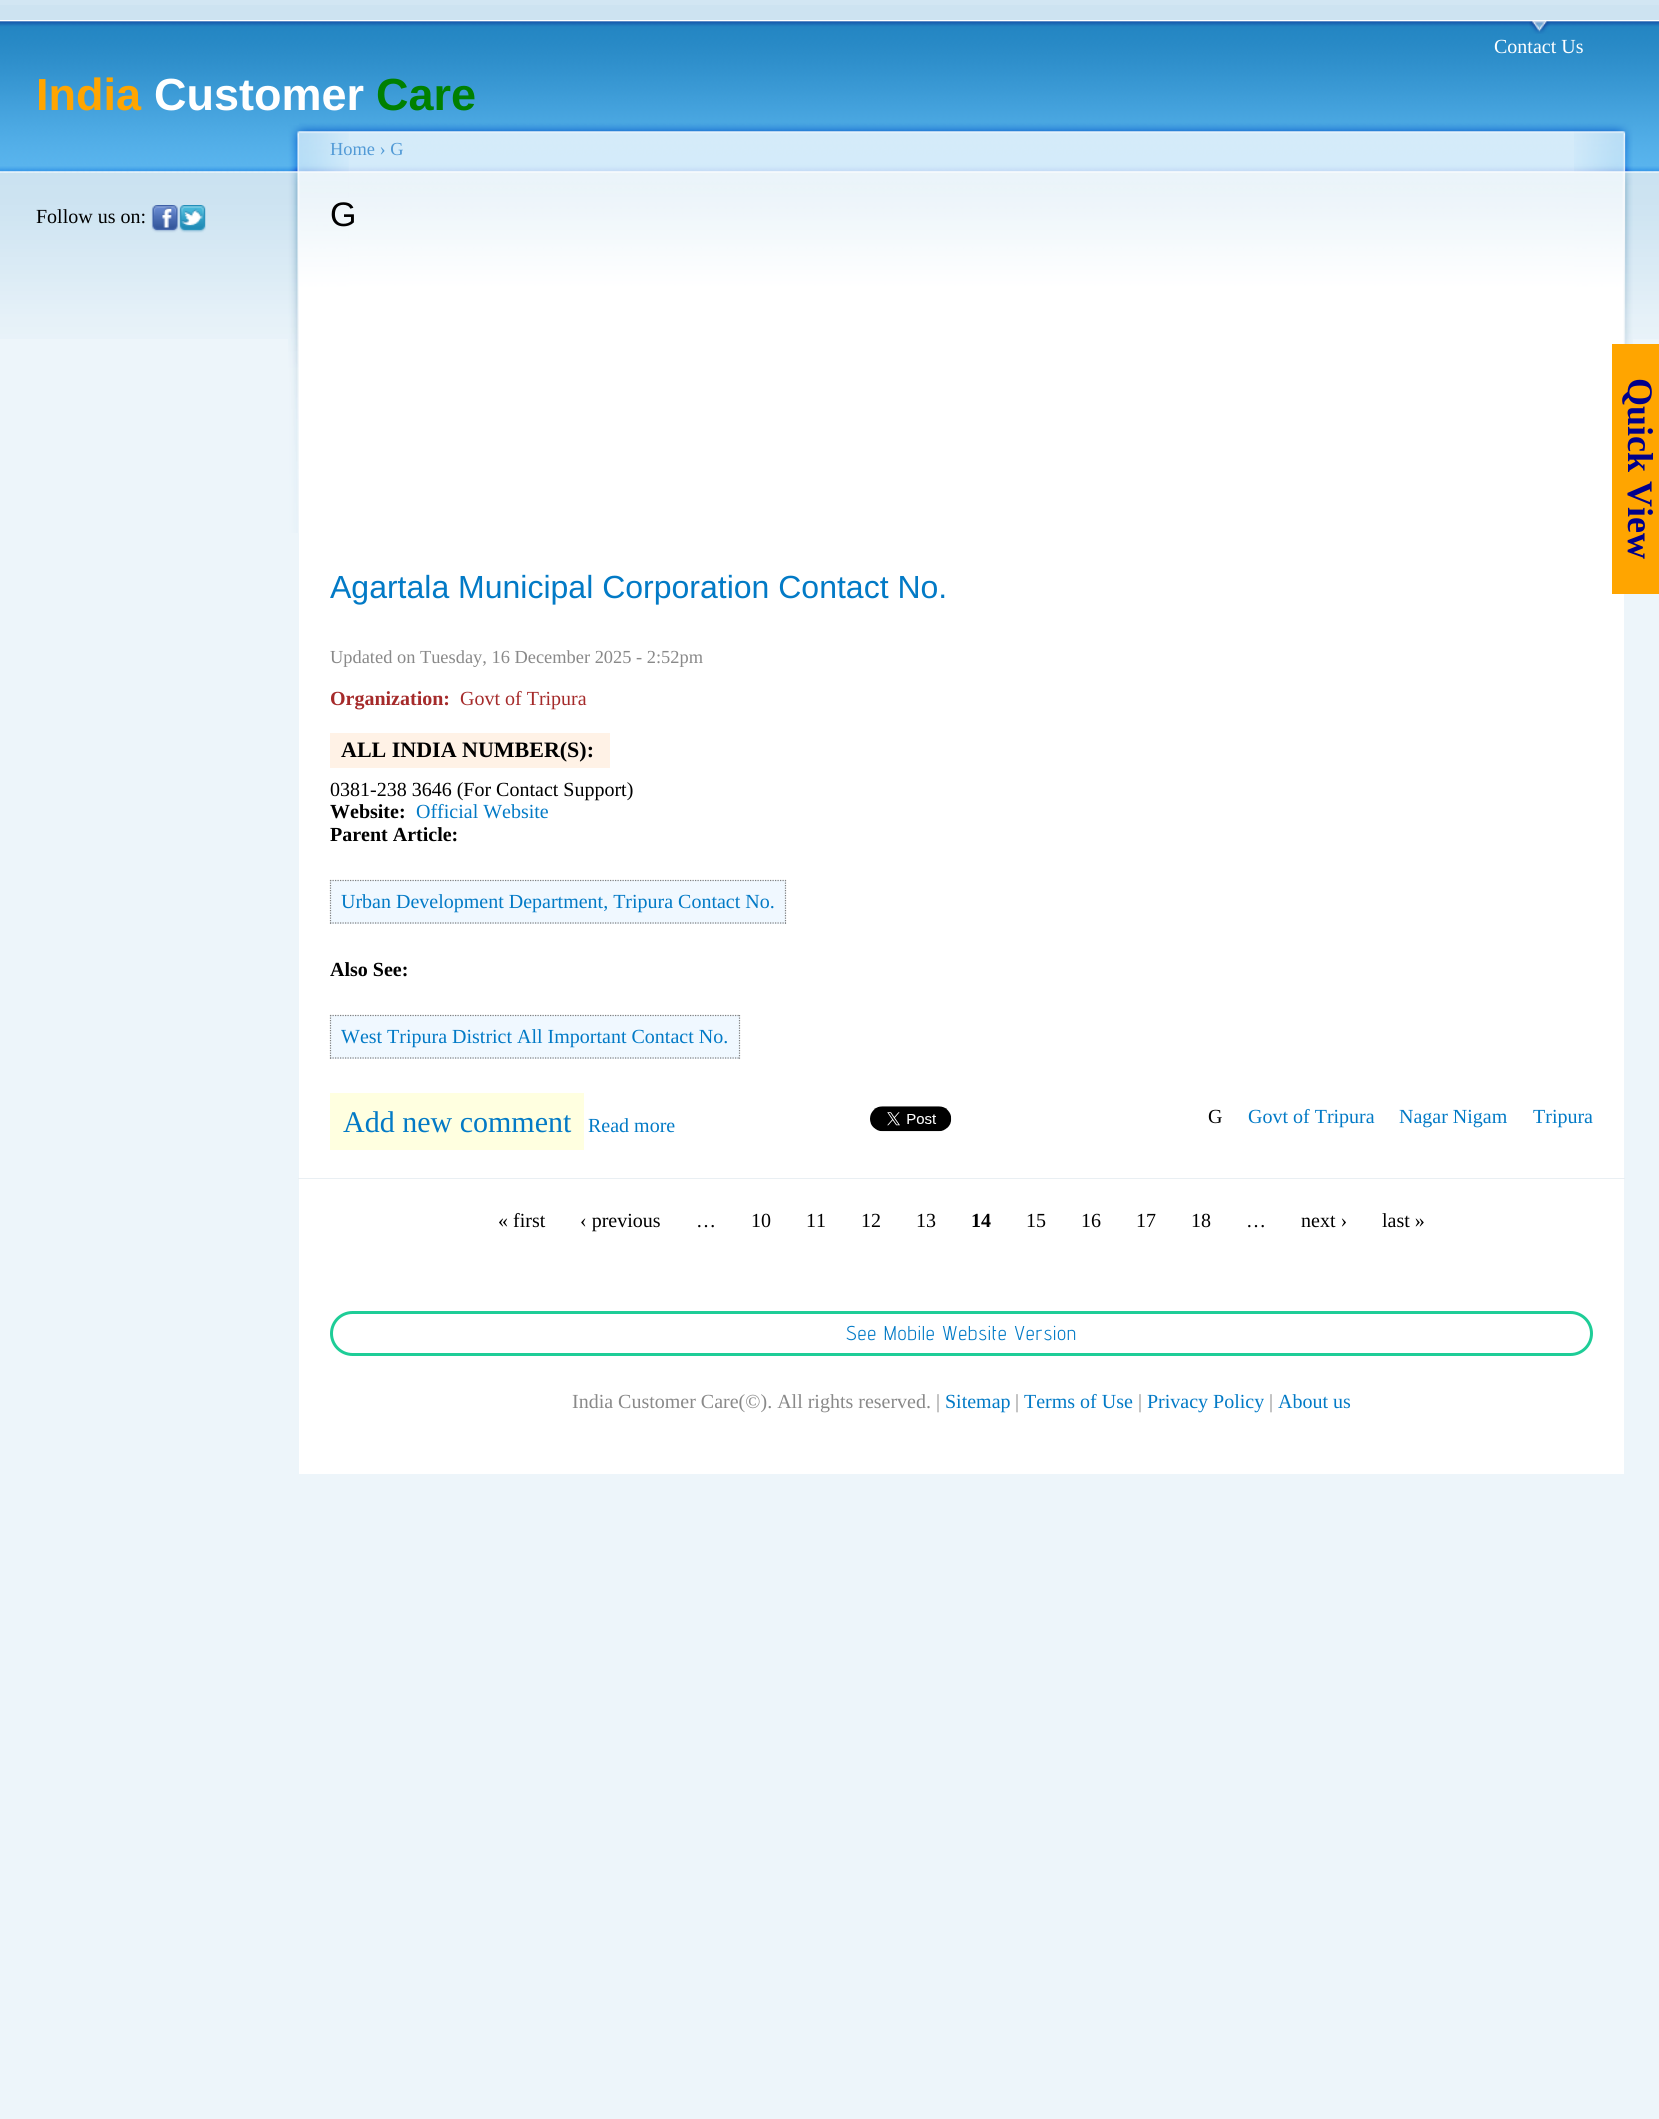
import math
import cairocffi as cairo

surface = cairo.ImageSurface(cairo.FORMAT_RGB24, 1659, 2119)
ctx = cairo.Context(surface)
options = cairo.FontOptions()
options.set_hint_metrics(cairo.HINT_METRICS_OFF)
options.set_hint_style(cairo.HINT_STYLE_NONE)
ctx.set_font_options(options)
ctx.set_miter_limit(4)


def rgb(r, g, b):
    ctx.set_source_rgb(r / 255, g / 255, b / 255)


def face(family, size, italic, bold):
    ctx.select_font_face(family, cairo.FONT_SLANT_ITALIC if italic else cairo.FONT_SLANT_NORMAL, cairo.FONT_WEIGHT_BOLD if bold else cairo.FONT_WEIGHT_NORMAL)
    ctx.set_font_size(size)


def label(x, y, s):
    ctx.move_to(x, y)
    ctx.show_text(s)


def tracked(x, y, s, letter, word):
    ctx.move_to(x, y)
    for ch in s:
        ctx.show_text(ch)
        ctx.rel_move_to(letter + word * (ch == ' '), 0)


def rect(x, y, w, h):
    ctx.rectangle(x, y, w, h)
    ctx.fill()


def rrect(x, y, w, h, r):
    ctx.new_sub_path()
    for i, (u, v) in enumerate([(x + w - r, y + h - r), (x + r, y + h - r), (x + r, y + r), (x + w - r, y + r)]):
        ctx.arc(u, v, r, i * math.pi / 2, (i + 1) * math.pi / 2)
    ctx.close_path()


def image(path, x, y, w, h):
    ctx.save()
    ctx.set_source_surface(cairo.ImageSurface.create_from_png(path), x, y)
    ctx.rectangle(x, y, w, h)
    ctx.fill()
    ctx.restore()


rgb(237, 245, 250)
ctx.paint()
rgb(210, 230, 243)
rect(0, 0, 1659, 5)
rgb(205, 227, 241)
rect(0, 5, 1659, 15)
image('image0.png', 0, 20, 1659, 319)
image('image1.png', 1529, 21, 21, 13)
face('Liberation Serif', 20, 0, 0)
rgb(255, 255, 255)
label(1494, 53, 'Contact Us')
face('Liberation Sans', 45, 0, 1)
rgb(255, 165, 0)
label(36, 110, 'India')
rgb(255, 255, 255)
label(154, 110, 'Customer')
rgb(0, 128, 0)
label(376, 110, 'Care')
face('Liberation Serif', 20, 0, 0)
rgb(0, 0, 0)
label(36, 223, 'Follow us on:')
image('image2.png', 151, 205, 28, 28)
image('image3.png', 179, 205, 27, 28)
rgb(255, 255, 255)
rect(299, 370, 1325, 1104)
image('image4.png', 298, 120, 1276, 250)
image('image5.png', 1574, 120, 59, 440)
image('image6.png', 288, 125, 61, 408)
face('Liberation Serif', 18.4, 0, 0)
rgb(82, 154, 214)
label(330, 155, 'Home › G')
face('Liberation Sans', 34, 0, 0)
rgb(0, 0, 0)
label(330, 226, 'G')
rgb(255, 165, 0)
rect(1612, 344, 47, 250)
face('Liberation Serif', 36, 0, 1)
rgb(0, 0, 139)
ctx.save()
ctx.translate(1628, 378)
ctx.rotate(90 * math.pi / 180)
label(0, 0, 'Quick View')
ctx.restore()
rrect(331.5, 1312.5, 1260, 42, 21)
rgb(30, 205, 151)
ctx.set_line_width(3)
ctx.stroke()
face('Advent Pro', 20, 0, 0)
rgb(2, 122, 198)
tracked(846, 1340, 'See Mobile Website Version', 1.25, 0)
face('Liberation Serif', 20, 0, 0)
rgb(137, 137, 137)
label(572, 1408, 'India Customer Care(©). All rights reserved. |')
rgb(2, 122, 198)
label(945, 1408, 'Sitemap')
rgb(137, 137, 137)
label(1015, 1408, '|')
rgb(2, 122, 198)
label(1024, 1408, 'Terms of Use')
rgb(137, 137, 137)
label(1138, 1408, '|')
rgb(2, 122, 198)
label(1147, 1408, 'Privacy Policy')
rgb(137, 137, 137)
label(1269, 1408, '|')
rgb(2, 122, 198)
label(1278, 1408, 'About us')
rgb(233, 239, 243)
rect(298, 1178, 1327, 1)
face('Liberation Sans', 32, 0, 0)
rgb(2, 122, 198)
label(330, 598, 'Agartala Municipal Corporation Contact No.')
face('Liberation Serif', 18.4, 0, 0)
rgb(137, 137, 137)
label(330, 663, 'Updated on Tuesday, 16 December 2025 - 2:52pm')
face('Liberation Serif', 20, 0, 1)
rgb(165, 42, 42)
label(330, 705, 'Organization:')
face('Liberation Serif', 20, 0, 0)
label(460, 705, 'Govt of Tripura')
rgb(255, 242, 230)
rect(330, 733, 280, 35)
face('Liberation Serif', 22, 0, 1)
rgb(0, 0, 0)
label(341, 757, 'ALL INDIA NUMBER(S):')
face('Liberation Serif', 20, 0, 0)
label(330, 796, '0381-238 3646 (For Contact Support)')
face('Liberation Serif', 20, 0, 1)
label(330, 818, 'Website:')
face('Liberation Serif', 20, 0, 0)
rgb(2, 122, 198)
label(416, 818, 'Official Website')
face('Liberation Serif', 20, 0, 1)
rgb(0, 0, 0)
label(330, 841, 'Parent Article:')
rgb(240, 248, 255)
rect(330, 880, 456, 44)
face('Liberation Serif', 20, 0, 0)
rgb(2, 122, 198)
label(341, 908, 'Urban Development Department, Tripura Contact No.')
ctx.new_path()
ctx.move_to(330, 880.5)
ctx.line_to(786, 880.5)
rgb(128, 128, 128)
ctx.set_line_width(1.2)
ctx.set_dash([1.25, 1.25])
ctx.stroke()
ctx.new_path()
ctx.move_to(785.5, 880)
ctx.line_to(785.5, 924)
ctx.stroke()
ctx.new_path()
ctx.move_to(330, 923)
ctx.line_to(786, 923)
ctx.stroke()
ctx.new_path()
ctx.move_to(330.5, 880)
ctx.line_to(330.5, 924)
ctx.stroke()
face('Liberation Serif', 20, 0, 1)
rgb(0, 0, 0)
label(330, 976, 'Also See:')
rgb(240, 248, 255)
rect(330, 1015, 410, 44)
face('Liberation Serif', 20, 0, 0)
rgb(2, 122, 198)
label(341, 1043, 'West Tripura District All Important Contact No.')
ctx.new_path()
ctx.move_to(330, 1015.5)
ctx.line_to(740, 1015.5)
rgb(128, 128, 128)
ctx.stroke()
ctx.new_path()
ctx.move_to(739.5, 1015)
ctx.line_to(739.5, 1059)
ctx.stroke()
ctx.new_path()
ctx.move_to(330, 1058)
ctx.line_to(740, 1058)
ctx.stroke()
ctx.new_path()
ctx.move_to(330.5, 1015)
ctx.line_to(330.5, 1059)
ctx.stroke()
rgb(255, 255, 224)
rect(330, 1093, 254, 57)
face('Liberation Serif', 30, 0, 0)
rgb(2, 122, 198)
label(343, 1132, 'Add new comment')
face('Liberation Serif', 20, 0, 0)
label(588, 1132, 'Read more')
image('image7.png', 870, 1106, 82, 26)
rgb(0, 0, 0)
label(1208, 1123, 'G')
rgb(2, 122, 198)
label(1248, 1123, 'Govt of Tripura')
label(1399, 1123, 'Nagar Nigam')
label(1533, 1123, 'Tripura')
rgb(0, 0, 0)
label(498, 1227, '« first')
label(580, 1227, '‹ previous')
label(696, 1227, '…')
label(751, 1227, '10')
label(806, 1227, '11')
label(861, 1227, '12')
label(916, 1227, '13')
face('Liberation Serif', 20, 0, 1)
label(971, 1227, '14')
face('Liberation Serif', 20, 0, 0)
label(1026, 1227, '15')
label(1081, 1227, '16')
label(1136, 1227, '17')
label(1191, 1227, '18')
label(1246, 1227, '…')
label(1301, 1227, 'next ›')
label(1382, 1227, 'last »')
surface.write_to_png('render.png')
